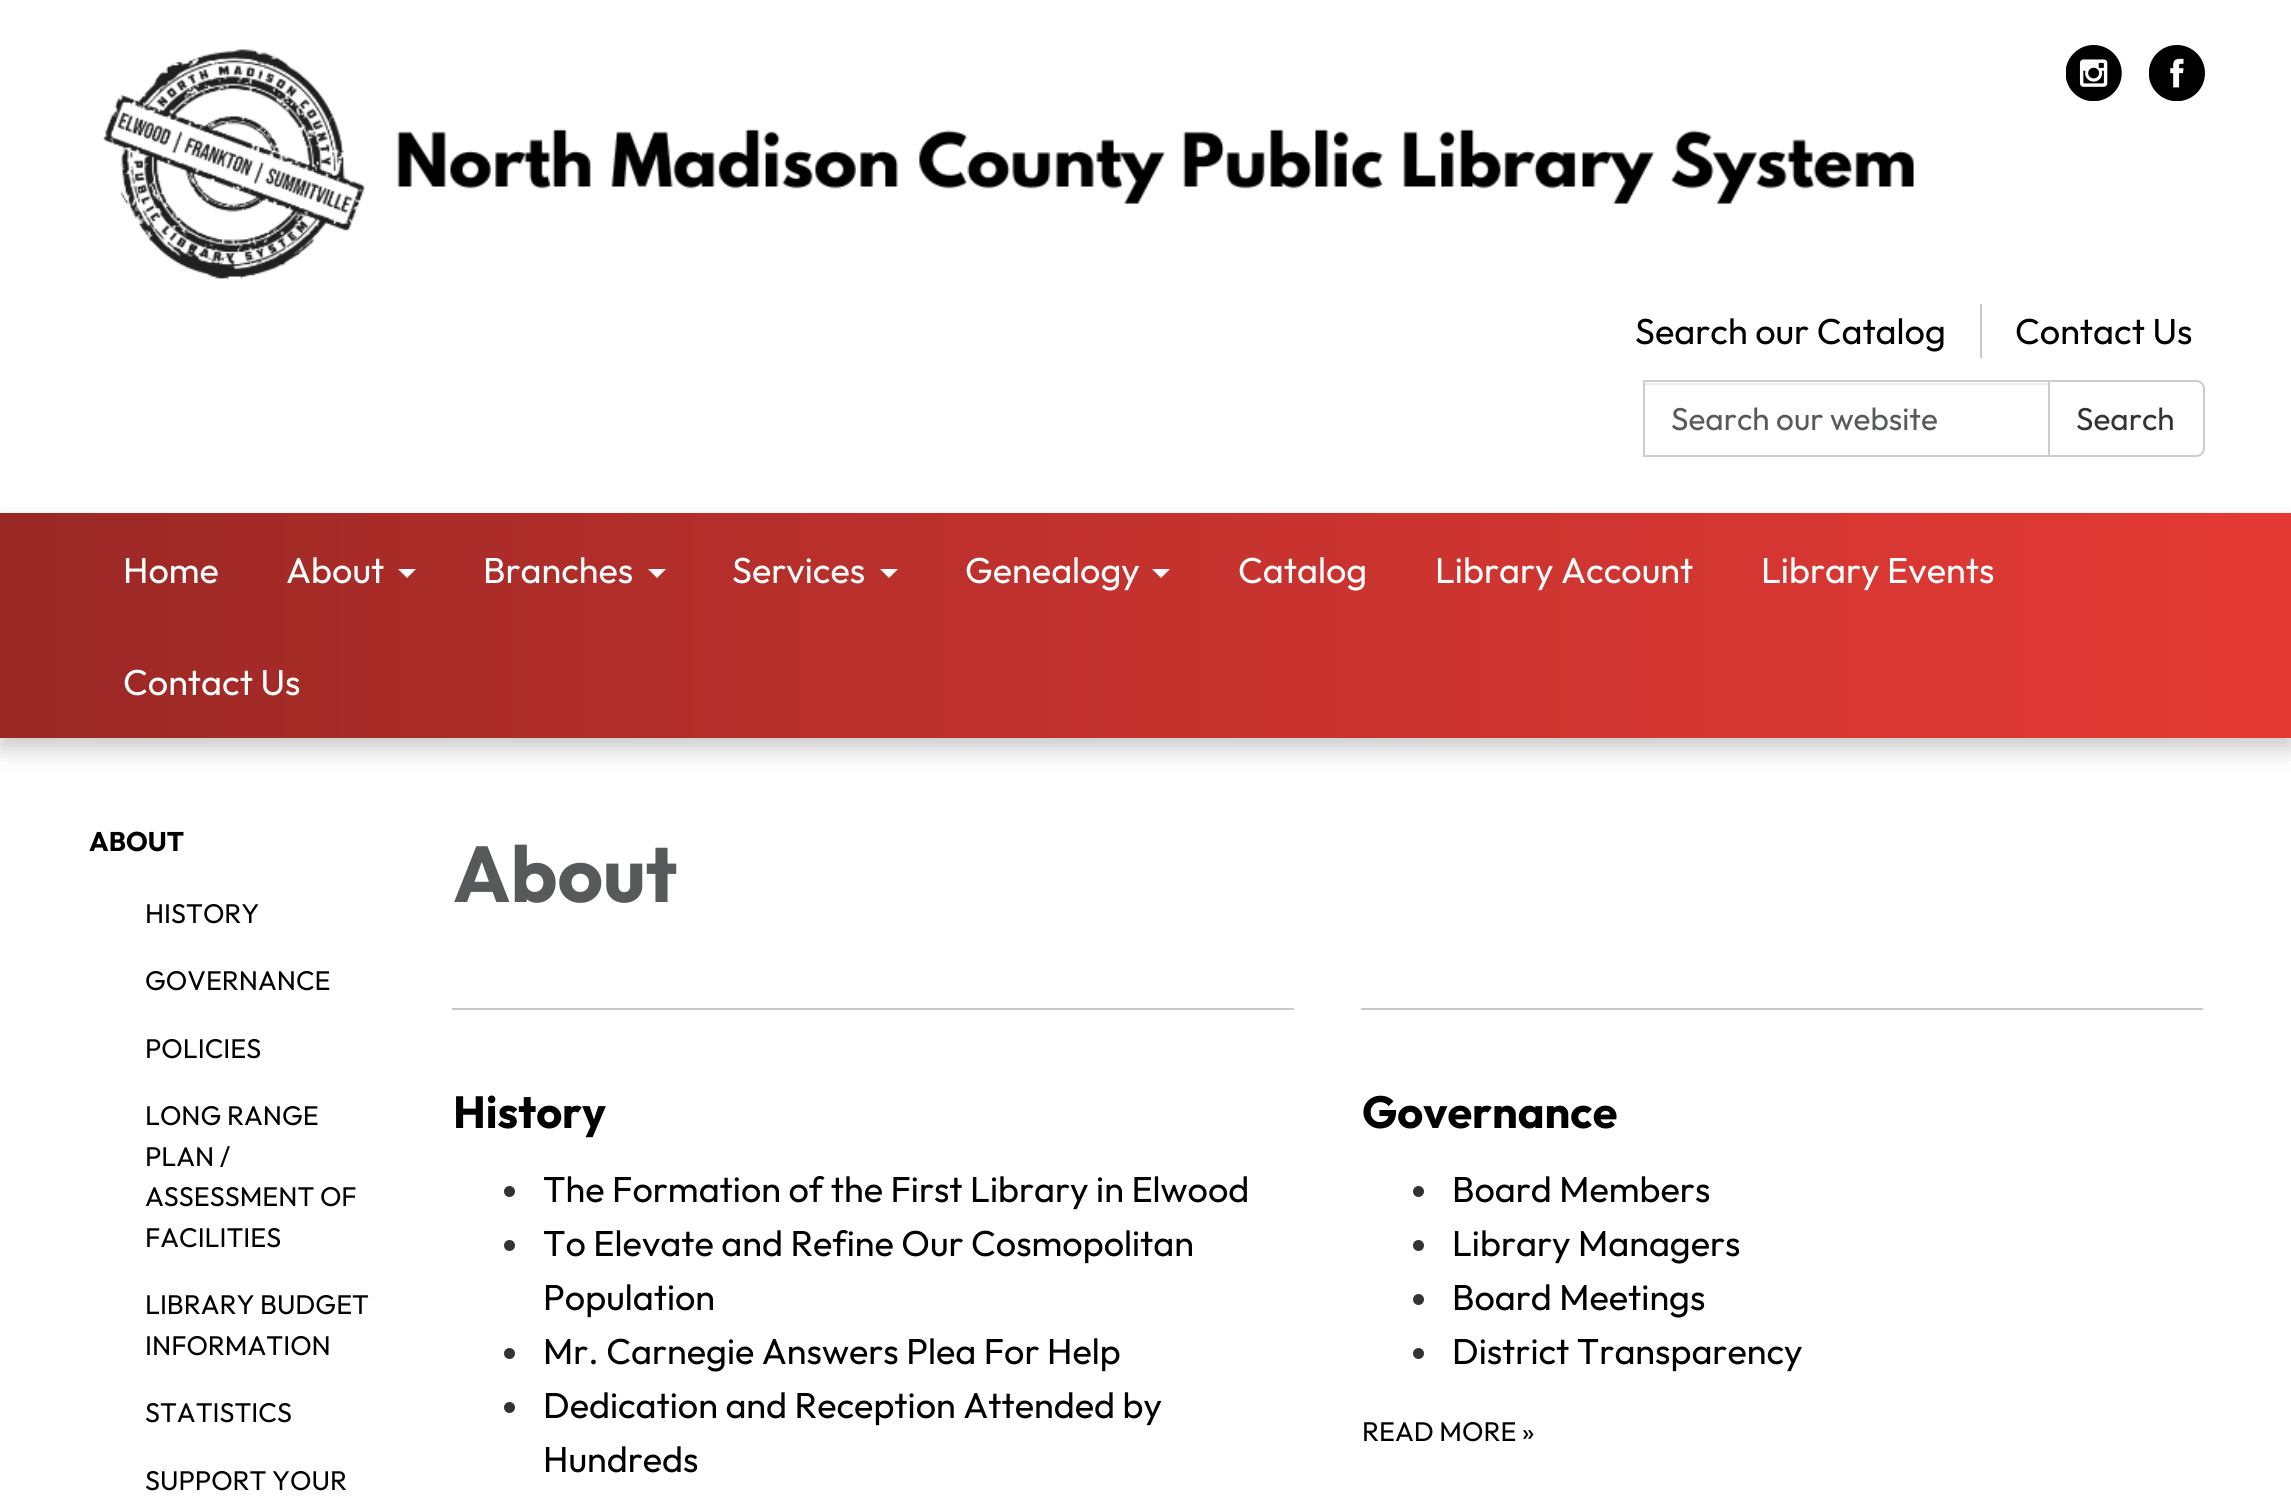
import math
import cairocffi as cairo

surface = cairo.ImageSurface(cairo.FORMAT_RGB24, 2291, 1507)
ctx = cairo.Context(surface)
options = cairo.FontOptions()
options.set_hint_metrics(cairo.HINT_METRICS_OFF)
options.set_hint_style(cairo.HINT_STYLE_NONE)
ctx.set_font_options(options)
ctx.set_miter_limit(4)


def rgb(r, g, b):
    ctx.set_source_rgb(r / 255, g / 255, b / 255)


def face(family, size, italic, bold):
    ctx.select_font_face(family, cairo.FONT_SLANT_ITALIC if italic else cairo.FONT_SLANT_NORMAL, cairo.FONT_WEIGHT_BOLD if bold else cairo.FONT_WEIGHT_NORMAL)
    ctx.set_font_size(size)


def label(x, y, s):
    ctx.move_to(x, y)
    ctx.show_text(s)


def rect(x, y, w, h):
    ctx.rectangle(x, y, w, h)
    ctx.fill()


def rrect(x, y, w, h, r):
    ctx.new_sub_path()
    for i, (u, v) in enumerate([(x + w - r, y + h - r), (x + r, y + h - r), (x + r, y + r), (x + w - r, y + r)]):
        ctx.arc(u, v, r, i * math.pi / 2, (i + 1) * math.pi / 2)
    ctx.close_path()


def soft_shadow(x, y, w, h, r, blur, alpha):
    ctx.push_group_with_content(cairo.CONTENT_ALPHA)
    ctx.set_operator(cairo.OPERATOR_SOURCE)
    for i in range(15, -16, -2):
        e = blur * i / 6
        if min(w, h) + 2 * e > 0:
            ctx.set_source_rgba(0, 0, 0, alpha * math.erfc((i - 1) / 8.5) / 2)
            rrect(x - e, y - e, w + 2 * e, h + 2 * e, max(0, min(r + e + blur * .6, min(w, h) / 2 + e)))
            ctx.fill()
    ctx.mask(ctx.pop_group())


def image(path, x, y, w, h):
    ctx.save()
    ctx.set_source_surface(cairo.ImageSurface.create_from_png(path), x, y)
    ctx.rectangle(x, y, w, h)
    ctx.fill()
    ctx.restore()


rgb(255, 255, 255)
ctx.paint()
image('image0.png', 103, 49, 1811, 231)
image('image1.png', 2066, 45, 56, 56)
image('image2.png', 2149, 45, 56, 56)
face('Outfit', 36, 0, 0)
rgb(0, 0, 0)
label(1635, 344, 'Search our Catalog')
rgb(200, 201, 203)
rect(1980, 304, 2, 54)
rgb(0, 0, 0)
label(2015, 344, 'Contact Us')
rgb(236, 236, 236)
rect(1645, 383, 403, 2)
ctx.rectangle(1644, 381, 405, 75)
rgb(204, 204, 204)
ctx.stroke()
face('Outfit', 31.5, 0, 0)
rgb(88, 89, 91)
label(1671, 430, 'Search our website')
rgb(255, 255, 255)
ctx.new_path()
ctx.move_to(2049, 381)
ctx.line_to(2196, 381)
ctx.curve_to(2200.5, 381, 2204, 384.5, 2204, 389)
ctx.line_to(2204, 448)
ctx.curve_to(2204, 452.5, 2200.5, 456, 2196, 456)
ctx.line_to(2049, 456)
ctx.close_path()
ctx.fill_preserve()
rgb(204, 204, 204)
ctx.stroke()
rgb(51, 51, 51)
label(2076, 430, 'Search')
rgb(0, 0, 0)
soft_shadow(0, 524, 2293, 225, 0, 11, 0.21)
gradient = cairo.LinearGradient(0, 626, 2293, 625)
gradient.add_color_stop_rgba(0, 0.604, 0.157, 0.145, 1)
gradient.add_color_stop_rgba(0.5, 0.769, 0.196, 0.18, 1)
gradient.add_color_stop_rgba(1, 0.894, 0.227, 0.208, 1)
ctx.set_source(gradient)
rect(0, 513, 2291, 225)
face('Outfit', 36, 0, 0)
rgb(255, 255, 255)
label(123, 583, 'Home')
label(286, 583, 'About')
ctx.new_path()
ctx.move_to(398, 569)
ctx.line_to(416, 569)
ctx.line_to(407, 578)
ctx.close_path()
ctx.fill()
label(483, 583, 'Branches')
ctx.new_path()
ctx.move_to(648, 569)
ctx.line_to(666, 569)
ctx.line_to(657, 578)
ctx.close_path()
ctx.fill()
label(732, 583, 'Services')
ctx.new_path()
ctx.move_to(880, 569)
ctx.line_to(898, 569)
ctx.line_to(889, 578)
ctx.close_path()
ctx.fill()
label(965, 583, 'Genealogy')
ctx.new_path()
ctx.move_to(1152, 569)
ctx.line_to(1170, 569)
ctx.line_to(1161, 578)
ctx.close_path()
ctx.fill()
label(1238, 583, 'Catalog')
label(1435, 583, 'Library Account')
label(1761, 583, 'Library Events')
label(123, 695, 'Contact Us')
face('Outfit', 27, 0, 1)
rgb(0, 0, 0)
label(89, 851, 'ABOUT')
face('Outfit', 27, 0, 0)
label(145, 923, 'HISTORY')
label(145, 990, 'GOVERNANCE')
label(145, 1058, 'POLICIES')
label(145, 1125, 'LONG RANGE')
label(145, 1166, 'PLAN /')
label(145, 1206, 'ASSESSMENT OF')
label(145, 1247, 'FACILITIES')
label(145, 1314, 'LIBRARY BUDGET')
label(145, 1355, 'INFORMATION')
label(145, 1422, 'STATISTICS')
label(145, 1490, 'SUPPORT YOUR')
face('Outfit', 79, 0, 1)
rgb(88, 89, 91)
label(453, 902, 'About')
rgb(200, 201, 203)
rect(452, 1008, 842, 2)
face('Outfit', 45, 0, 1)
rgb(0, 0, 0)
label(453, 1128, 'History')
rgb(51, 51, 51)
ctx.new_path()
ctx.arc(509.5, 1191.5, 5.5, 0, 2 * math.pi)
ctx.fill()
face('Outfit', 36, 0, 0)
rgb(0, 0, 0)
label(543, 1202, 'The Formation of the First Library in Elwood')
rgb(51, 51, 51)
ctx.new_path()
ctx.arc(509.5, 1245.5, 5.5, 0, 2 * math.pi)
ctx.fill()
rgb(0, 0, 0)
label(543, 1256, 'To Elevate and Refine Our Cosmopolitan')
label(543, 1310, 'Population')
rgb(51, 51, 51)
ctx.new_path()
ctx.arc(509.5, 1353.5, 5.5, 0, 2 * math.pi)
ctx.fill()
rgb(0, 0, 0)
label(543, 1364, 'Mr. Carnegie Answers Plea For Help')
rgb(51, 51, 51)
ctx.new_path()
ctx.arc(509.5, 1407.5, 5.5, 0, 2 * math.pi)
ctx.fill()
rgb(0, 0, 0)
label(543, 1418, 'Dedication and Reception Attended by')
label(543, 1472, 'Hundreds')
rgb(200, 201, 203)
rect(1361, 1008, 842, 2)
face('Outfit', 45, 0, 1)
rgb(0, 0, 0)
label(1362, 1128, 'Governance')
rgb(51, 51, 51)
ctx.new_path()
ctx.arc(1418.5, 1191.5, 5.5, 0, 2 * math.pi)
ctx.fill()
face('Outfit', 36, 0, 0)
rgb(0, 0, 0)
label(1452, 1202, 'Board Members')
rgb(51, 51, 51)
ctx.new_path()
ctx.arc(1418.5, 1245.5, 5.5, 0, 2 * math.pi)
ctx.fill()
rgb(0, 0, 0)
label(1452, 1256, 'Library Managers')
rgb(51, 51, 51)
ctx.new_path()
ctx.arc(1418.5, 1299.5, 5.5, 0, 2 * math.pi)
ctx.fill()
rgb(0, 0, 0)
label(1452, 1310, 'Board Meetings')
rgb(51, 51, 51)
ctx.new_path()
ctx.arc(1418.5, 1353.5, 5.5, 0, 2 * math.pi)
ctx.fill()
rgb(0, 0, 0)
label(1452, 1364, 'District Transparency')
face('Outfit', 27, 0, 0)
label(1362, 1441, 'READ MORE »')
surface.write_to_png('render.png')
